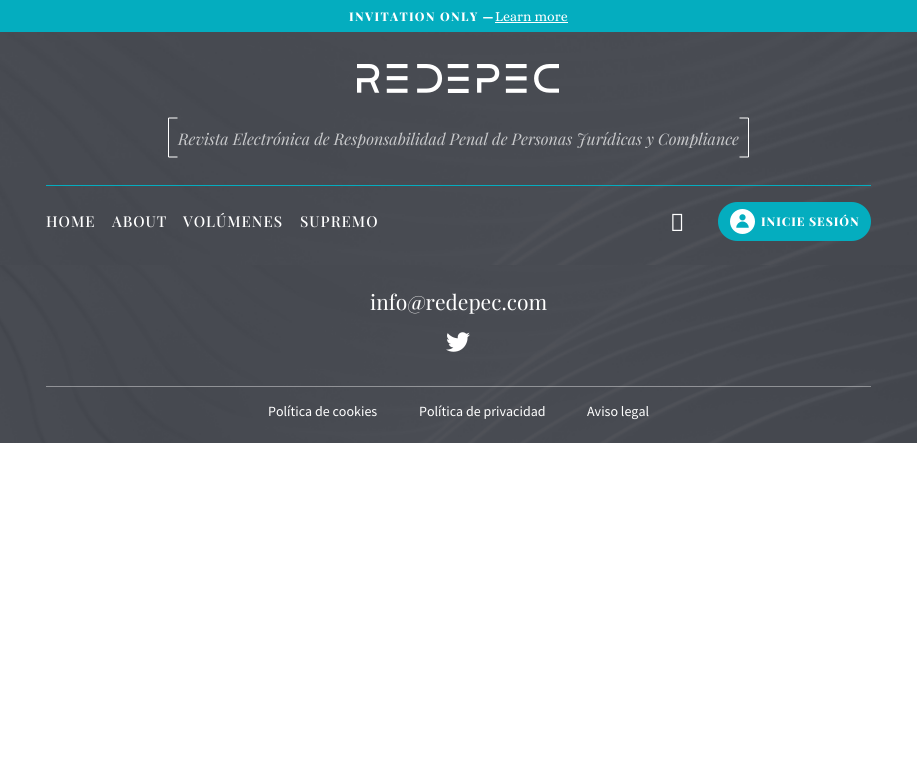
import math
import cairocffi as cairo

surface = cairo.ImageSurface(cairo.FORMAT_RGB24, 917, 777)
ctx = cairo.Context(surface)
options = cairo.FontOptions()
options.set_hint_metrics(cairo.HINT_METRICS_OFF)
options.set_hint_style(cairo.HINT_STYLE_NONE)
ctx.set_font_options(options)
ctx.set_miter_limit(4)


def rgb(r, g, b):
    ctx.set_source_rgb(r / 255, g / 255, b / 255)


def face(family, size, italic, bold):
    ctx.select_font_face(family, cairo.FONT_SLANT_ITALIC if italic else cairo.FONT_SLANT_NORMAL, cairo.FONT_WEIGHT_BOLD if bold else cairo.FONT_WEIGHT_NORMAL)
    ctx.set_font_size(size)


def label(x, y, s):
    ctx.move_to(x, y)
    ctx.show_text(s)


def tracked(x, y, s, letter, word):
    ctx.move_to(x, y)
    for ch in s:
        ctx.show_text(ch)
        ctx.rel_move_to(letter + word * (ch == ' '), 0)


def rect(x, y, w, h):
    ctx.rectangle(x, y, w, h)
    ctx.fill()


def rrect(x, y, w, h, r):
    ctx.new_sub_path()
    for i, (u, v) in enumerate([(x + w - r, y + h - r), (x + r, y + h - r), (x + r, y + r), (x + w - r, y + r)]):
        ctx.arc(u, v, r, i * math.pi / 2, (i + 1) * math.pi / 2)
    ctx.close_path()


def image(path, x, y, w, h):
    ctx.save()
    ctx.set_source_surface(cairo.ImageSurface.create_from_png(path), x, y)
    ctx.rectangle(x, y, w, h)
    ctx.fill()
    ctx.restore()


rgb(255, 255, 255)
ctx.paint()
image('image0.png', 0, 32, 917, 233)
rgb(4, 173, 191)
rect(0, 0, 917, 32)
face('Playfair Display ExtraBold', 12, 0, 0)
rgb(255, 255, 255)
tracked(349, 21, 'INVITATION ONLY —', 1.3, 0)
face('Alice', 14, 0, 0)
label(495, 21, 'Learn more')
rect(495, 22, 73, 1)
rgb(4, 173, 191)
rect(46, 185, 825, 1)
image('image1.png', 357, 64, 202, 29)
image('image2.png', 168, 117, 10, 41)
face('Playfair Display', 16, 1, 0)
rgb(200, 201, 203)
label(178, 145, 'Revista Electrónica de Responsabilidad Penal de Personas Jurídicas y Compliance')
image('image3.png', 739, 117, 10, 41)
face('Playfair Display Medium', 15, 0, 0)
rgb(255, 255, 255)
tracked(46, 227, 'HOME', 1, 0)
tracked(112, 227, 'ABOUT', 1, 0)
tracked(183, 227, 'VOLÚMENES', 1, 0)
tracked(300, 227, 'SUPREMO', 1, 0)
image('image4.png', 672, 213, 11, 18)
rgb(4, 173, 191)
rrect(718, 202, 153, 39, 19.5)
ctx.fill()
image('image5.png', 730, 209, 25, 25)
face('Playfair Display ExtraBold', 12, 0, 0)
rgb(255, 255, 255)
tracked(761, 226, 'INICIE SESIÓN', 0.9, 0)
image('image6.png', 0, 265, 917, 178)
face('Playfair Display', 21, 0, 0)
label(370, 310, 'info@redepec.com')
image('image7.png', 446, 332, 24, 20)
ctx.set_source_rgba(1, 1, 1, 0.4)
rect(46, 386, 825, 1)
face('Source Sans Pro', 14, 0, 0)
rgb(255, 255, 255)
label(268, 416, 'Política de cookies')
label(419, 416, 'Política de privacidad')
label(587, 416, 'Aviso legal')
surface.write_to_png('render.png')
